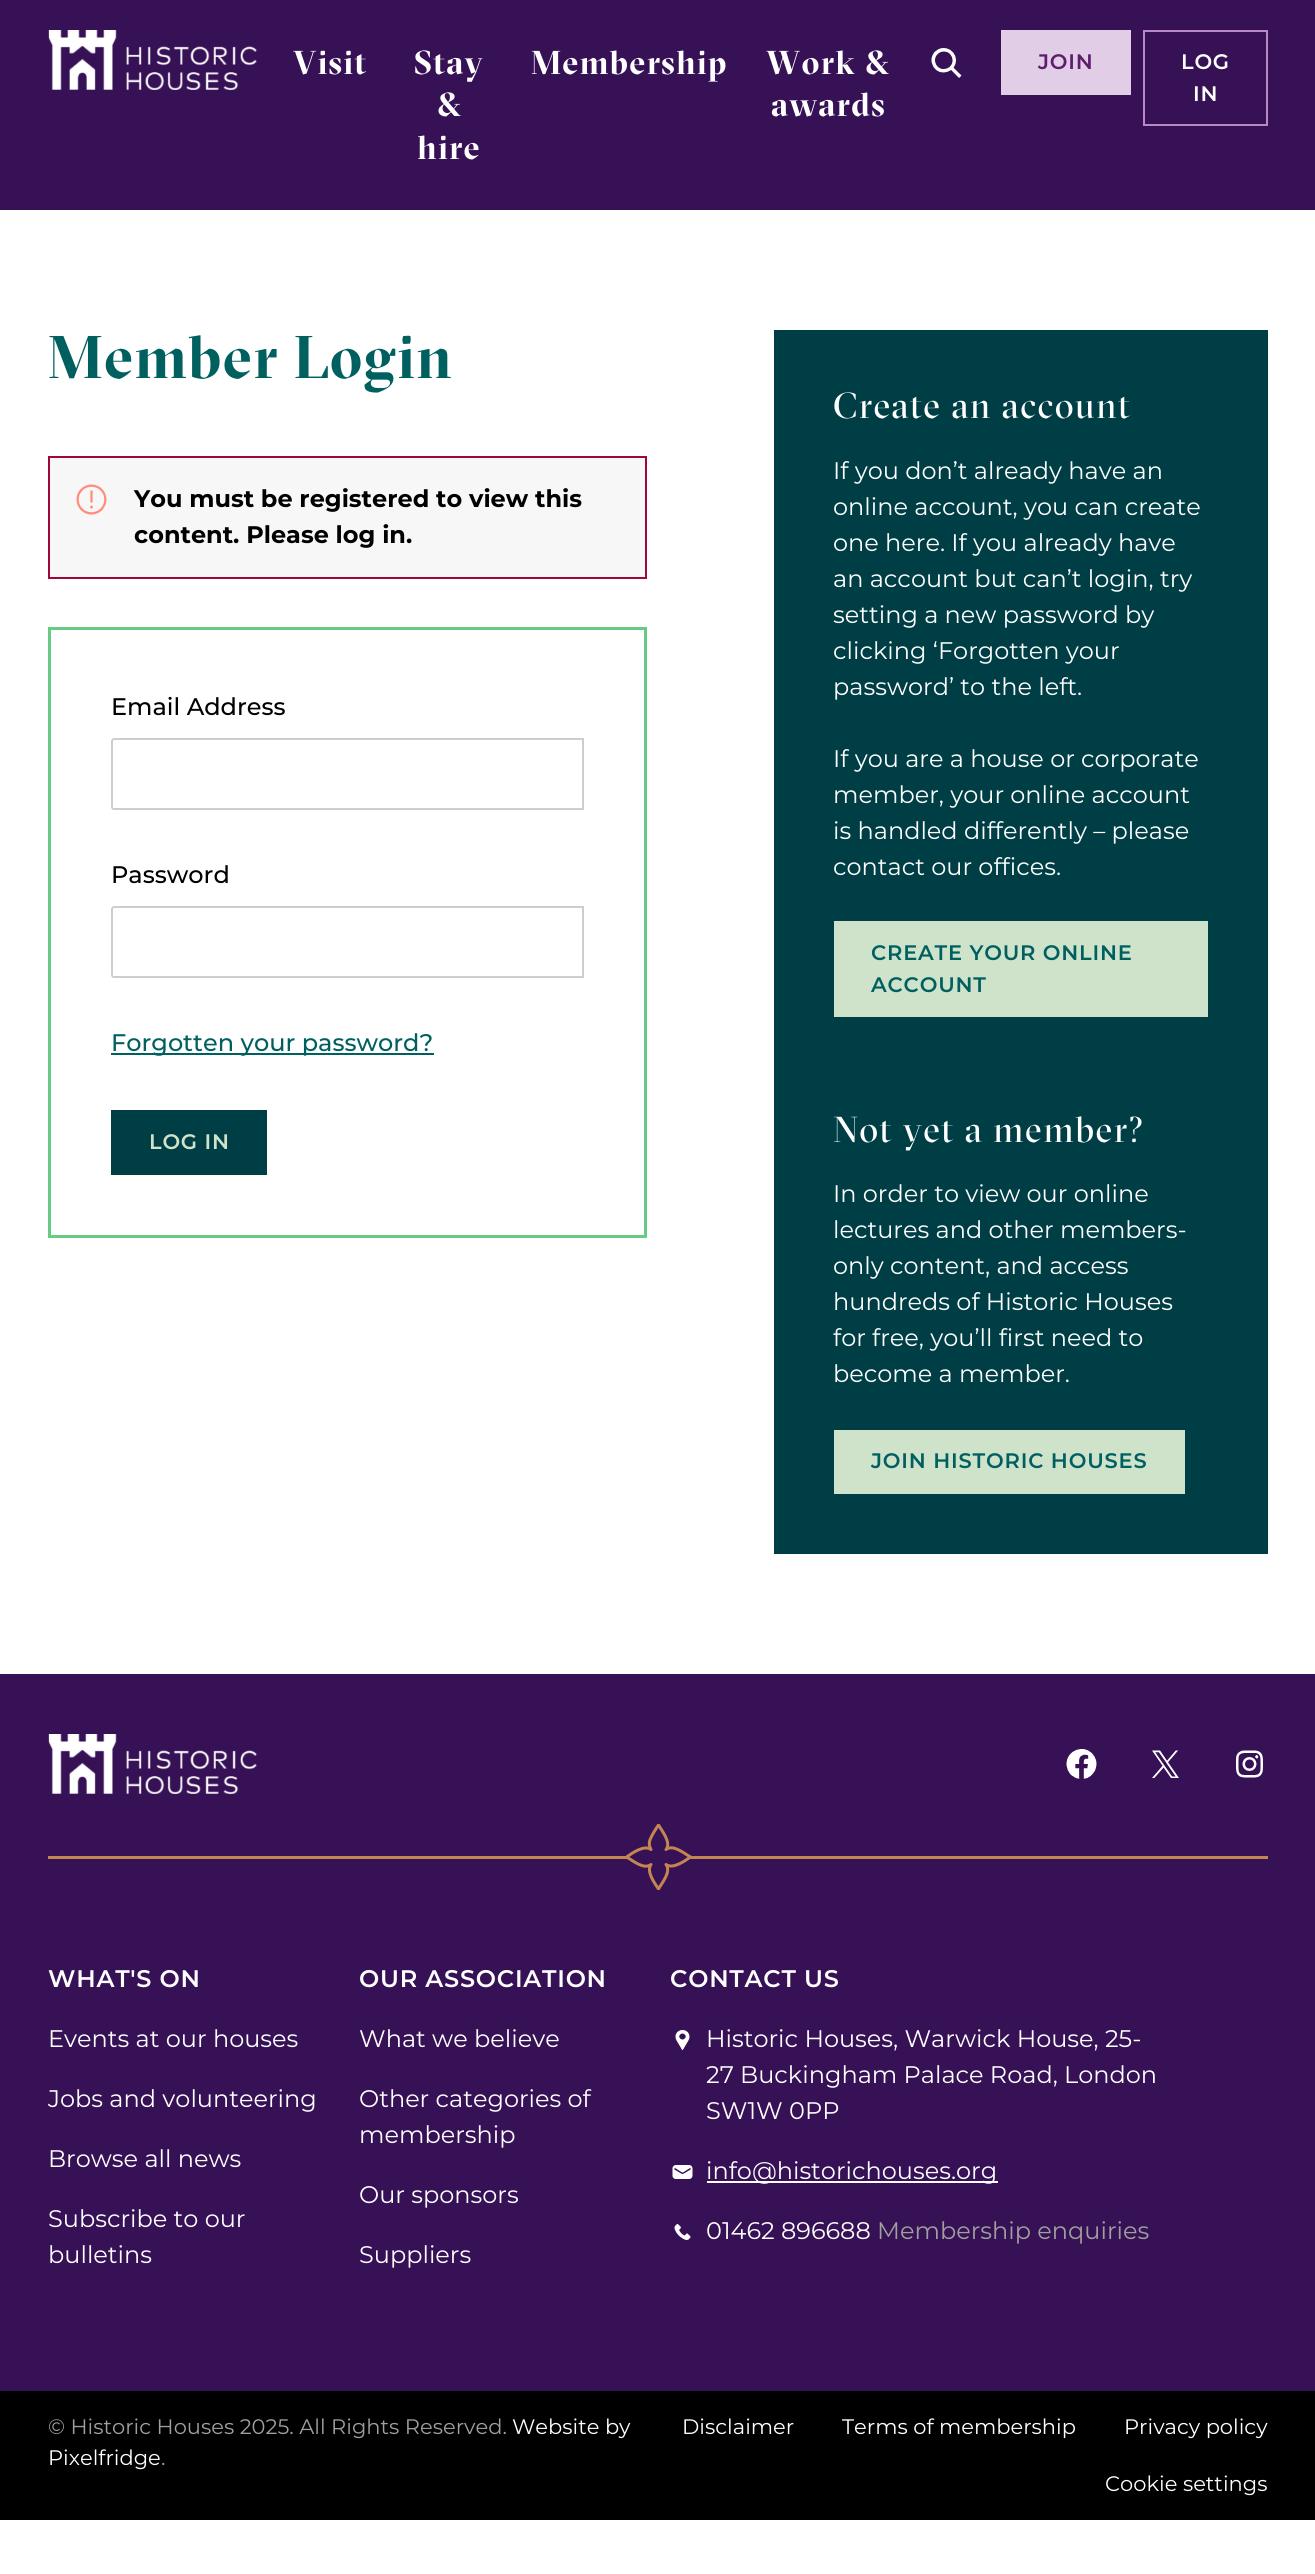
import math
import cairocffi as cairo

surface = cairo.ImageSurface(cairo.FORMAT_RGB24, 1315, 2574)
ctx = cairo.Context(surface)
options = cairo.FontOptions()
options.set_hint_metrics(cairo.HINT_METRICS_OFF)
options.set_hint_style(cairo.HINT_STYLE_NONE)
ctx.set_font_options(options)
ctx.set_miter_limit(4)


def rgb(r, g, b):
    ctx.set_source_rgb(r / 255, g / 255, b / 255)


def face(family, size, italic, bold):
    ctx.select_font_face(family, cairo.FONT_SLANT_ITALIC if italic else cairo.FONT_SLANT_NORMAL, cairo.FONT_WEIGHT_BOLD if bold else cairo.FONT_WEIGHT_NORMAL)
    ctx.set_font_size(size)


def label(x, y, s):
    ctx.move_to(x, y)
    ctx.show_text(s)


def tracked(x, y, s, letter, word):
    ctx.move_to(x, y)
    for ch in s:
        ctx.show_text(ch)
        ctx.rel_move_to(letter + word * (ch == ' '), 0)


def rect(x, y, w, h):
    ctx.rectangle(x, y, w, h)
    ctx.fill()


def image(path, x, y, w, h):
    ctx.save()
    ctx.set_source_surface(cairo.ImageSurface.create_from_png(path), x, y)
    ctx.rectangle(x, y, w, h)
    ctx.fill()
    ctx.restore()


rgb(255, 255, 255)
ctx.paint()
rgb(55, 17, 85)
rect(0, 0, 1315, 210)
image('image0.png', 48, 30, 209, 60)
face('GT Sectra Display', 33, 0, 1)
rgb(255, 255, 255)
tracked(293, 74, 'Visit', 1.25, 0)
tracked(414, 74, 'Stay', 1.25, 0)
tracked(437, 116, '&', 1.25, 0)
tracked(417, 159, 'hire', 1.25, 0)
tracked(531, 74, 'Membership', 1.25, 0)
tracked(766, 74, 'Work &', 1.25, 0)
tracked(771, 116, 'awards', 1.25, 0)
image('image1.png', 931, 48, 31, 30)
rgb(225, 206, 230)
rect(1001, 30, 130, 65)
face('Montserrat SemiBold', 21, 0, 0)
rgb(97, 28, 112)
tracked(1038, 69, 'JOIN', 0.8, 0)
ctx.rectangle(1144, 31, 123, 94)
rgb(186, 136, 201)
ctx.stroke()
rgb(255, 255, 255)
tracked(1181, 69, 'LOG', 0.8, 0)
tracked(1193, 101, 'IN', 0.8, 0)
face('GT Sectra Display', 60, 0, 1)
rgb(0, 96, 96)
tracked(48, 378, 'Member Login', 1.25, 0)
rgb(247, 247, 247)
ctx.rectangle(49, 457, 597, 121)
ctx.fill_preserve()
rgb(159, 7, 54)
ctx.stroke()
image('image2.png', 76, 484, 31, 31)
face('Montserrat', 24, 0, 1)
rgb(0, 0, 0)
label(134, 507, 'You must be registered to view this')
label(134, 543, 'content. Please log in.')
ctx.rectangle(49.5, 628.5, 596, 608)
rgb(104, 203, 132)
ctx.set_line_width(3)
ctx.stroke()
face('Montserrat Medium', 24, 0, 0)
rgb(0, 0, 0)
label(111, 715, 'Email Address')
ctx.new_path()
ctx.move_to(114, 739)
ctx.line_to(583, 739)
ctx.line_to(583, 809)
ctx.line_to(114, 809)
ctx.curve_to(113, 809, 112, 808, 112, 807)
ctx.line_to(112, 741)
ctx.curve_to(112, 740, 113, 739, 114, 739)
ctx.close_path()
rgb(205, 205, 205)
ctx.set_line_width(2)
ctx.stroke()
rgb(0, 0, 0)
label(111, 883, 'Password')
ctx.new_path()
ctx.move_to(114, 907)
ctx.line_to(583, 907)
ctx.line_to(583, 977)
ctx.line_to(114, 977)
ctx.curve_to(113, 977, 112, 976, 112, 975)
ctx.line_to(112, 909)
ctx.curve_to(112, 908, 113, 907, 114, 907)
ctx.close_path()
rgb(205, 205, 205)
ctx.stroke()
rgb(0, 96, 96)
rect(111, 1053, 323, 2)
label(111, 1051, 'Forgotten your password?')
rgb(0, 62, 70)
rect(111, 1110, 156, 65)
face('Montserrat SemiBold', 21, 0, 0)
rgb(207, 227, 203)
tracked(149, 1149, 'LOG IN', 0.8, 0)
rgb(0, 62, 70)
rect(774, 330, 494, 1224)
face('GT Sectra Display', 36, 0, 0)
rgb(255, 255, 255)
tracked(833, 418, 'Create an account', 1.4, 0)
face('Montserrat', 24, 0, 0)
label(833, 479, 'If you don’t already have an')
label(833, 515, 'online account, you can create')
label(833, 551, 'one here. If you already have')
label(833, 587, 'an account but can’t login, try')
label(833, 623, 'setting a new password by')
label(833, 659, 'clicking ‘Forgotten your')
label(833, 695, 'password’ to the left.')
label(833, 767, 'If you are a house or corporate')
label(833, 803, 'member, your online account')
label(833, 839, 'is handled differently – please')
label(833, 875, 'contact our offices.')
rgb(207, 227, 203)
rect(834, 921, 374, 96)
face('Montserrat SemiBold', 21, 0, 0)
rgb(0, 96, 96)
tracked(871, 960, 'CREATE YOUR ONLINE', 0.8, 0)
tracked(871, 992, 'ACCOUNT', 0.8, 0)
face('GT Sectra Display', 36, 0, 0)
rgb(255, 255, 255)
tracked(833, 1142, 'Not yet a member?', 1.4, 0)
face('Montserrat', 24, 0, 0)
label(833, 1202, 'In order to view our online')
label(833, 1238, 'lectures and other members-')
label(833, 1274, 'only content, and access')
label(833, 1310, 'hundreds of Historic Houses')
label(833, 1346, 'for free, you’ll first need to')
label(833, 1382, 'become a member.')
rgb(207, 227, 203)
rect(834, 1430, 351, 64)
face('Montserrat SemiBold', 21, 0, 0)
rgb(0, 96, 96)
tracked(871, 1468, 'JOIN HISTORIC HOUSES', 0.8, 0)
rgb(55, 17, 85)
rect(0, 1674, 1315, 717)
image('image0.png', 48, 1734, 209, 60)
image('image3.png', 1066, 1749, 31, 30)
image('image4.png', 1152, 1750, 27, 28)
image('image5.png', 1236, 1750, 27, 28)
rgb(195, 133, 82)
rect(48, 1856, 581, 3)
ctx.save()
ctx.rectangle(626, 1824, 66, 66)
ctx.clip()
ctx.new_path()
ctx.move_to(651, 1864.5)
ctx.curve_to(643.5, 1870, 633, 1860.5, 626.5, 1857)
ctx.curve_to(632.5, 1853, 644, 1844.5, 651, 1849.5)
ctx.curve_to(649.5, 1847, 649, 1844, 649.5, 1841.5)
ctx.curve_to(650.5, 1837, 656, 1828.5, 658.5, 1825)
ctx.curve_to(662, 1831, 671.5, 1842.5, 666, 1849.5)
ctx.curve_to(673.5, 1844, 684, 1853.5, 690.5, 1857)
ctx.curve_to(684.5, 1861, 673, 1869.5, 666, 1864.5)
ctx.curve_to(671.5, 1872, 662, 1882.5, 658.5, 1889)
ctx.curve_to(654.5, 1883, 646, 1871.5, 651, 1864.5)
ctx.close_path()
ctx.set_line_width(3)
ctx.set_line_cap(cairo.LINE_CAP_SQUARE)
ctx.set_line_join(cairo.LINE_JOIN_ROUND)
ctx.stroke()
ctx.restore()
rect(689, 1856, 579, 3)
face('Montserrat SemiBold', 24, 0, 0)
rgb(255, 255, 255)
tracked(48, 1987, 'WHAT\'S ON', 0.75, 0)
face('Montserrat', 24, 0, 0)
label(48, 2047, 'Events at our houses')
label(48, 2107, 'Jobs and volunteering')
label(48, 2167, 'Browse all news')
label(48, 2227, 'Subscribe to our')
label(48, 2263, 'bulletins')
face('Montserrat SemiBold', 24, 0, 0)
tracked(359, 1987, 'OUR ASSOCIATION', 0.75, 0)
face('Montserrat', 24, 0, 0)
label(359, 2047, 'What we believe')
label(359, 2107, 'Other categories of')
label(359, 2143, 'membership')
label(359, 2203, 'Our sponsors')
label(359, 2263, 'Suppliers')
face('Montserrat SemiBold', 24, 0, 0)
tracked(670, 1987, 'CONTACT US', 0.75, 0)
image('image6.png', 675, 2030, 15, 20)
face('Montserrat', 24, 0, 0)
label(706, 2047, 'Historic Houses, Warwick House, 25-')
label(706, 2083, '27 Buckingham Palace Road, London')
label(706, 2119, 'SW1W 0PP')
image('image7.png', 672, 2165, 21, 14)
rect(707, 2181, 291, 2)
label(706, 2179, 'info@historichouses.org')
image('image8.png', 674, 2224, 17, 16)
label(706, 2239, '01462 896688')
rgb(159, 159, 158)
label(877, 2239, 'Membership enquiries')
rgb(0, 0, 0)
rect(0, 2391, 1315, 129)
face('Montserrat', 21, 0, 0)
rgb(159, 159, 158)
label(48, 2434, '© Historic Houses 2025. All Rights Reserved.')
rgb(255, 255, 255)
label(512, 2434, 'Website by')
label(48, 2465, 'Pixelfridge')
rgb(159, 159, 158)
label(161, 2465, '.')
rgb(255, 255, 255)
label(682, 2434, 'Disclaimer')
label(842, 2434, 'Terms of membership')
label(1124, 2434, 'Privacy policy')
label(1105, 2491, 'Cookie settings')
surface.write_to_png('render.png')
